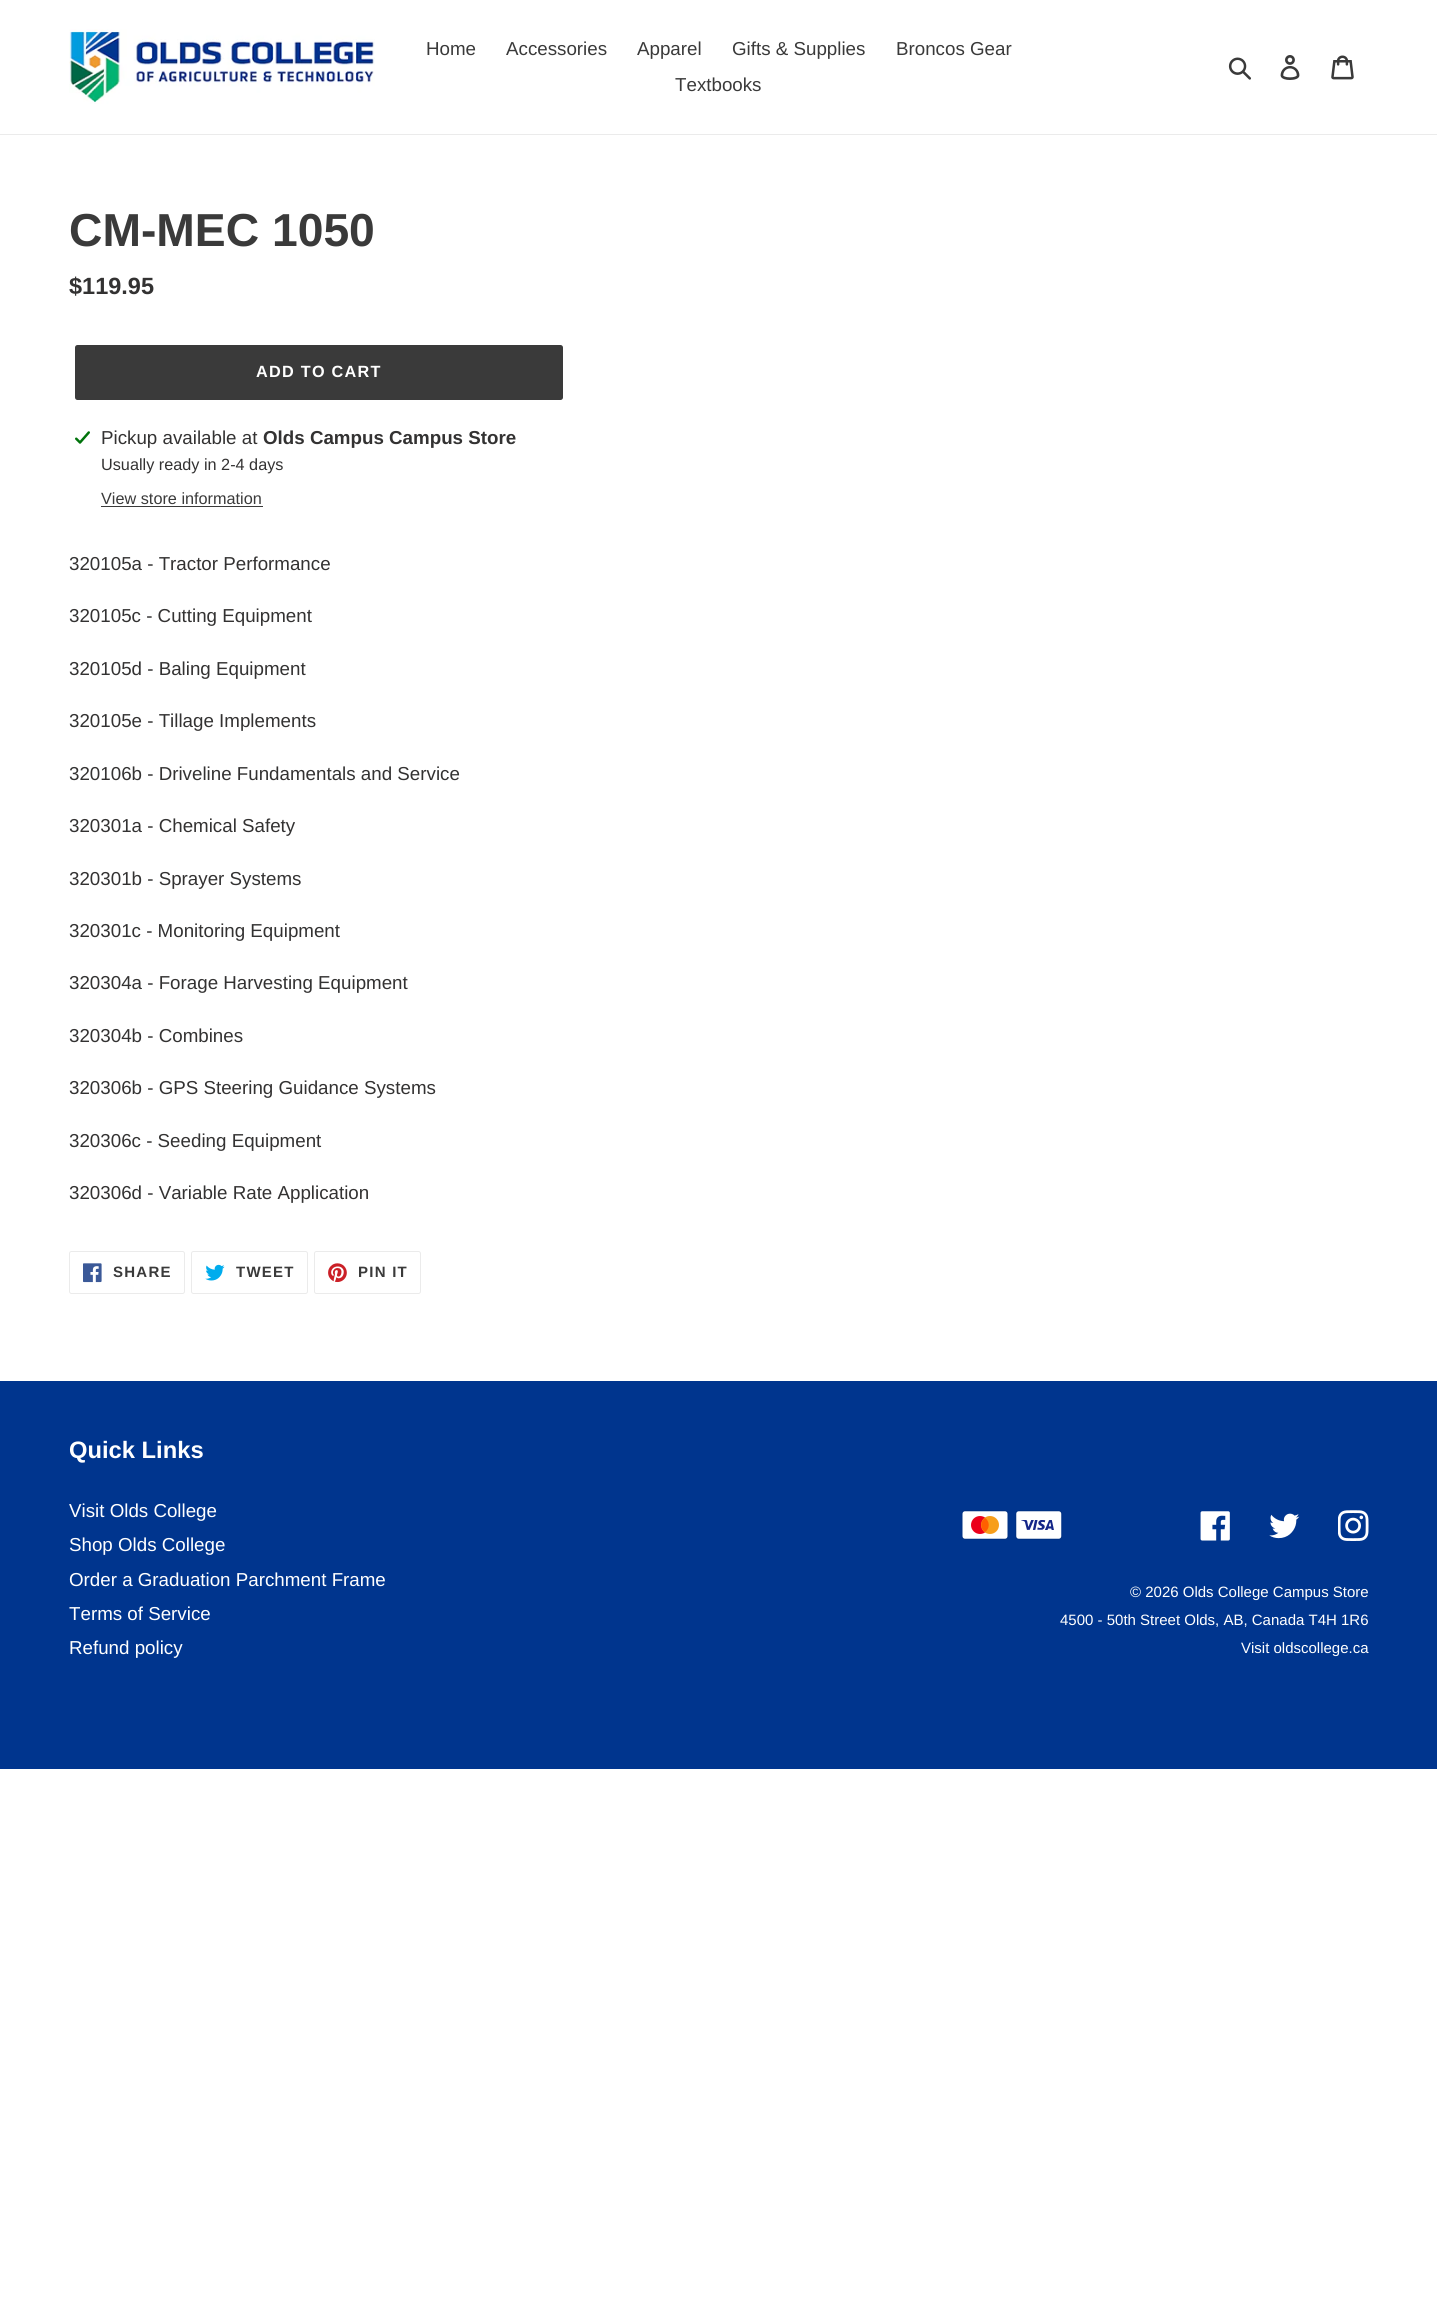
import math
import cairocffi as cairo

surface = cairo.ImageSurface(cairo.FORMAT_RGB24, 1437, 2300)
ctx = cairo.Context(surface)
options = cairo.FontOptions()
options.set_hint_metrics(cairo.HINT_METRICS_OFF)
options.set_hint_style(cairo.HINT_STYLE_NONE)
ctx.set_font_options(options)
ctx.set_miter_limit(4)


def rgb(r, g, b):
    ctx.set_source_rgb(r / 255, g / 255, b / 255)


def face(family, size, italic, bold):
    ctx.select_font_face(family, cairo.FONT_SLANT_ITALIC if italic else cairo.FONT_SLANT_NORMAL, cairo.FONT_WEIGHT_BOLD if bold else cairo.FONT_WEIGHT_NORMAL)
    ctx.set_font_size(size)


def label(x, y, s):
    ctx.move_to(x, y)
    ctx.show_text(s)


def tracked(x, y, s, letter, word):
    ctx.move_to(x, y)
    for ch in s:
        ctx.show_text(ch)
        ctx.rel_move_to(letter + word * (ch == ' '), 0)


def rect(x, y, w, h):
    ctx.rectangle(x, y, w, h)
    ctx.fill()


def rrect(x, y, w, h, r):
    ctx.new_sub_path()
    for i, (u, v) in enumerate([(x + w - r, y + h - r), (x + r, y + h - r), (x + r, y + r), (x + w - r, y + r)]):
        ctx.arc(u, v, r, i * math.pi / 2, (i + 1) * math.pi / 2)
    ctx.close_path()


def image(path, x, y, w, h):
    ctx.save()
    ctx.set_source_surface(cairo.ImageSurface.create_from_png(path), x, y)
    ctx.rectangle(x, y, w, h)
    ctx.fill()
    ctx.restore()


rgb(255, 255, 255)
ctx.paint()
rgb(235, 235, 235)
rect(0, 134, 1437, 1)
image('image0.png', 69, 29, 306, 75)
face('Liberation Sans', 18.75, 0, 0)
rgb(58, 58, 58)
label(426, 55, 'Home')
label(506, 55, 'Accessories')
label(637, 55, 'Apparel')
label(732, 55, 'Gifts & Supplies')
label(896, 55, 'Broncos Gear')
label(675, 91, 'Textbooks')
image('image1.png', 1228, 57, 23, 23)
image('image2.png', 1280, 55, 20, 25)
image('image3.png', 1331, 55, 23, 25)
face('Liberation Sans', 46.25, 0, 1)
label(69, 246, 'CM-MEC 1050')
face('Liberation Sans', 23.5, 0, 1)
rgb(51, 50, 50)
label(69, 294, '$119.95')
rgb(58, 58, 58)
rrect(75, 345, 488, 55, 2.5)
ctx.fill()
face('Liberation Sans', 16.25, 0, 1)
rgb(255, 255, 255)
tracked(256, 377, 'ADD TO CART', 1.25, 0)
image('image4.png', 75, 431, 15, 13)
face('Liberation Sans', 18.75, 0, 0)
rgb(51, 50, 50)
label(101, 444, 'Pickup available at')
face('Liberation Sans', 18.75, 0, 1)
label(263, 444, 'Olds Campus Campus Store')
face('Liberation Sans', 16.25, 0, 0)
label(101, 470, 'Usually ready in 2-4 days')
rgb(58, 58, 58)
label(101, 504, 'View store information')
rect(101, 506, 162, 1)
face('Liberation Sans', 18.75, 0, 0)
rgb(51, 50, 50)
label(69, 570, '320105a - Tractor Performance')
label(69, 622, '320105c - Cutting Equipment')
label(69, 675, '320105d - Baling Equipment')
label(69, 727, '320105e - Tillage Implements')
label(69, 780, '320106b - Driveline Fundamentals and Service')
label(69, 832, '320301a - Chemical Safety')
label(69, 885, '320301b - Sprayer Systems')
label(69, 937, '320301c - Monitoring Equipment')
label(69, 989, '320304a - Forage Harvesting Equipment')
label(69, 1042, '320304b - Combines')
label(69, 1094, '320306b - GPS Steering Guidance Systems')
label(69, 1147, '320306c - Seeding Equipment')
label(69, 1199, '320306d - Variable Rate Application')
rrect(69.5, 1251.5, 115, 42, 2)
rgb(235, 235, 235)
ctx.set_line_width(1)
ctx.stroke()
image('image5.png', 83, 1263, 19, 20)
face('Liberation Sans', 15, 0, 1)
rgb(58, 58, 58)
tracked(113, 1277, 'SHARE', 1.25, 0)
rrect(191.5, 1251.5, 116, 42, 2)
rgb(235, 235, 235)
ctx.stroke()
image('image6.png', 205, 1264, 20, 17)
rgb(58, 58, 58)
tracked(236, 1277, 'TWEET', 1.25, 0)
rrect(314.5, 1251.5, 106, 42, 2)
rgb(235, 235, 235)
ctx.stroke()
image('image7.png', 328, 1263, 19, 20)
rgb(58, 58, 58)
tracked(358, 1277, 'PIN IT', 1.25, 0)
rgb(0, 53, 142)
rect(0, 1381, 1437, 388)
face('Liberation Sans', 23.75, 0, 1)
rgb(255, 255, 255)
label(69, 1458, 'Quick Links')
face('Liberation Sans', 18.75, 0, 0)
label(69, 1517, 'Visit Olds College')
label(69, 1551, 'Shop Olds College')
label(69, 1586, 'Order a Graduation Parchment Frame')
label(69, 1620, 'Terms of Service')
label(69, 1654, 'Refund policy')
image('image8.png', 961, 1510, 48, 30)
image('image9.png', 1015, 1510, 48, 30)
image('image10.png', 1200, 1511, 30, 30)
image('image11.png', 1269, 1513, 31, 26)
image('image12.png', 1338, 1510, 31, 31)
face('Liberation Sans', 15, 0, 0)
label(1130, 1597, '© 2026 Olds College Campus Store')
label(1060, 1625, '4500 - 50th Street Olds, AB, Canada T4H 1R6')
label(1241, 1653, 'Visit oldscollege.ca')
surface.write_to_png('render.png')
